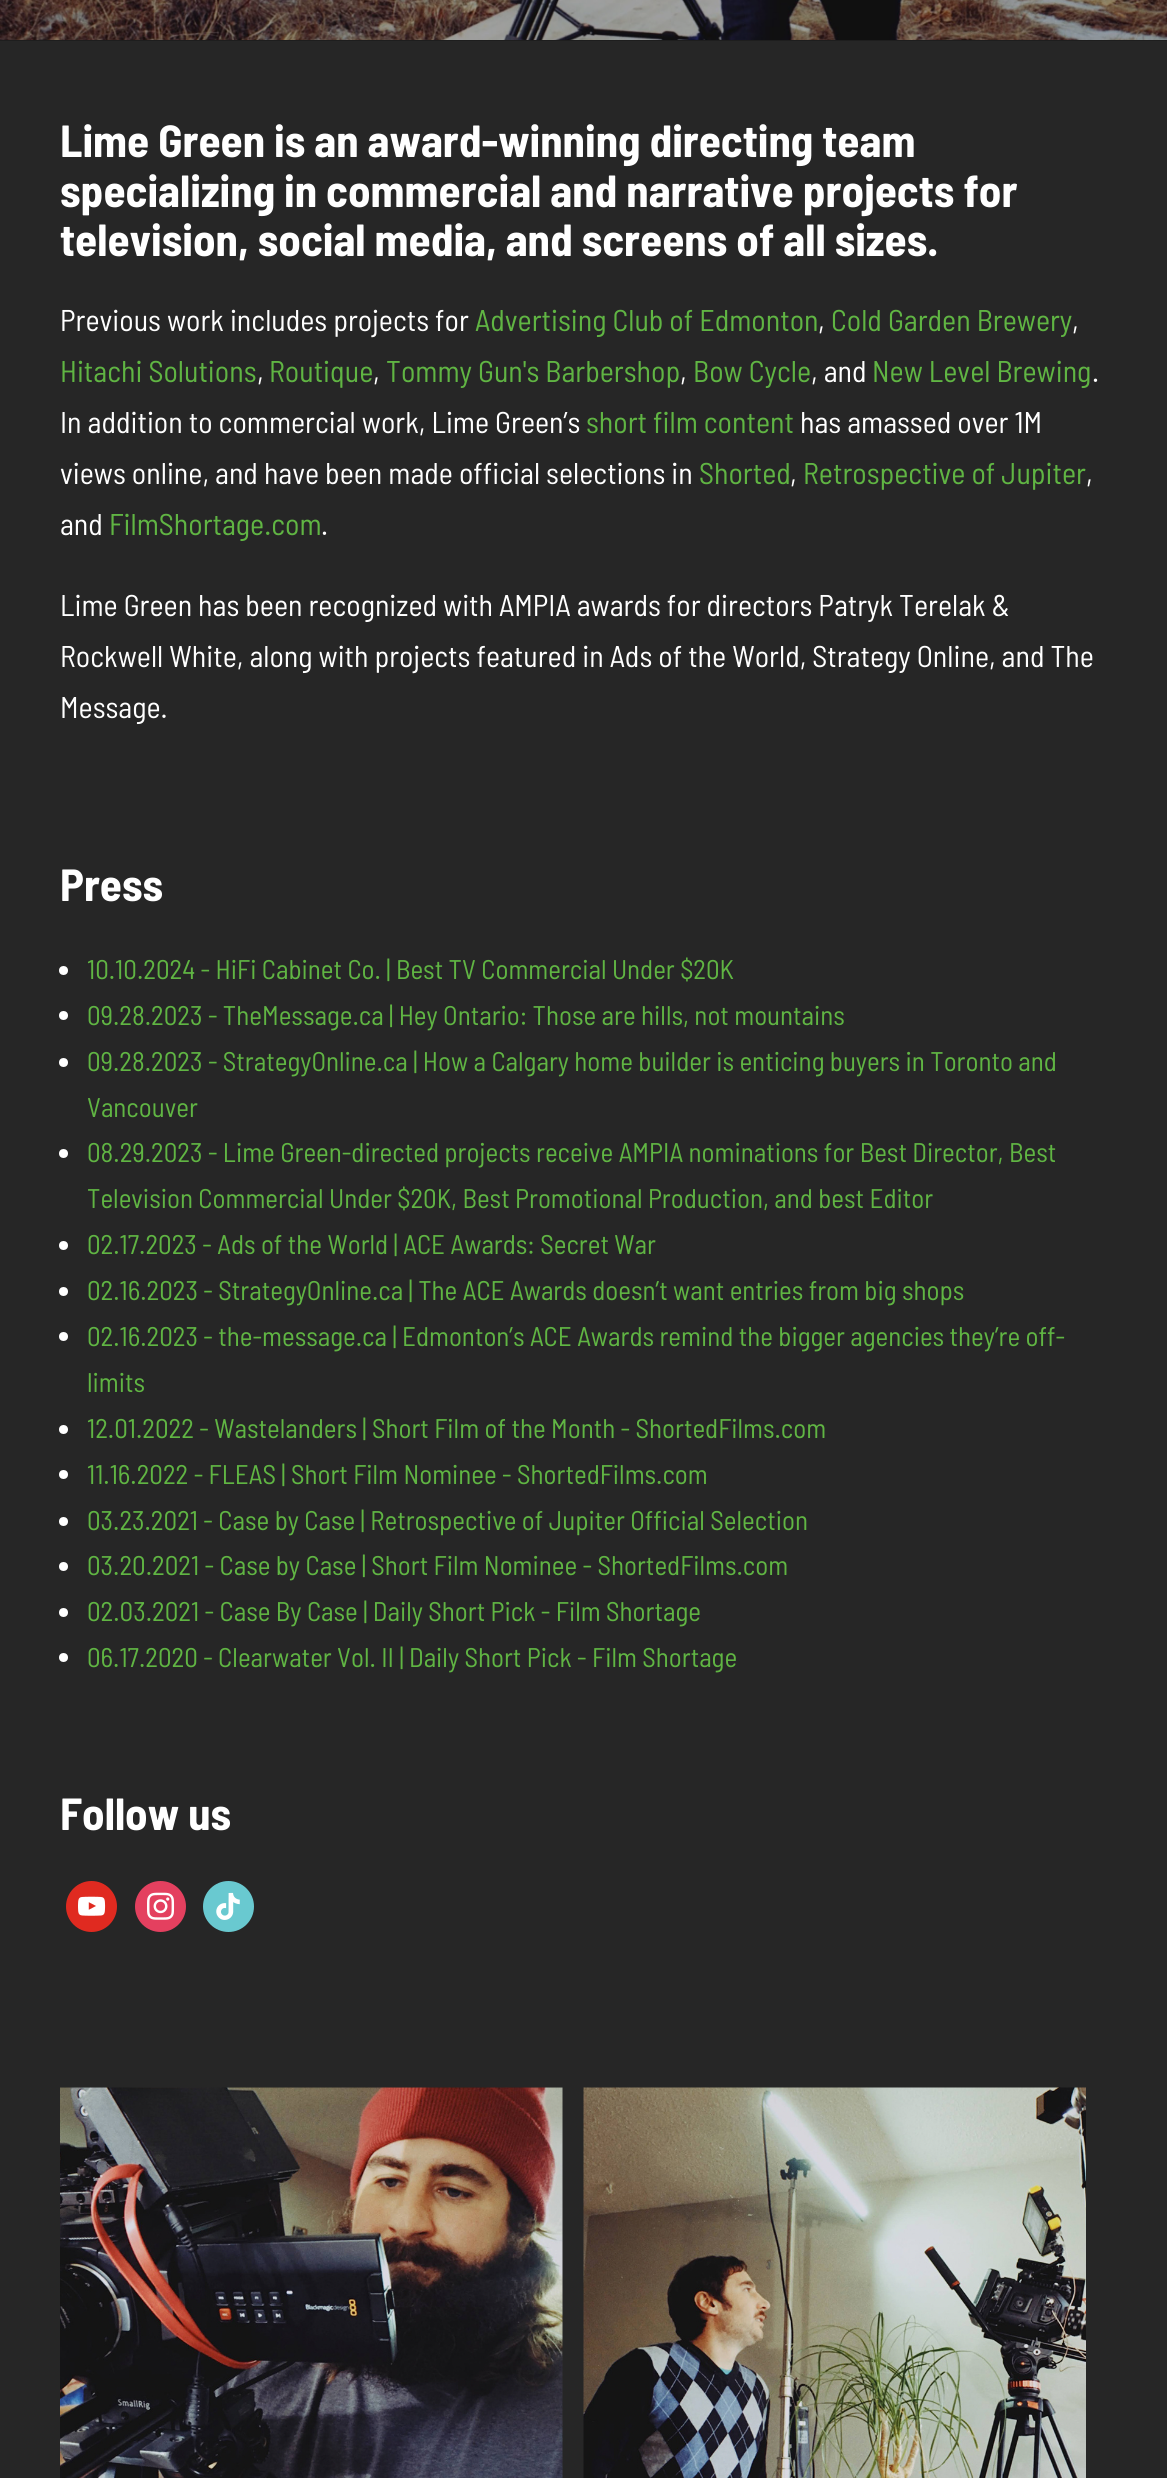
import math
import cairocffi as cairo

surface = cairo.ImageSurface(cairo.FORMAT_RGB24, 1167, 2478)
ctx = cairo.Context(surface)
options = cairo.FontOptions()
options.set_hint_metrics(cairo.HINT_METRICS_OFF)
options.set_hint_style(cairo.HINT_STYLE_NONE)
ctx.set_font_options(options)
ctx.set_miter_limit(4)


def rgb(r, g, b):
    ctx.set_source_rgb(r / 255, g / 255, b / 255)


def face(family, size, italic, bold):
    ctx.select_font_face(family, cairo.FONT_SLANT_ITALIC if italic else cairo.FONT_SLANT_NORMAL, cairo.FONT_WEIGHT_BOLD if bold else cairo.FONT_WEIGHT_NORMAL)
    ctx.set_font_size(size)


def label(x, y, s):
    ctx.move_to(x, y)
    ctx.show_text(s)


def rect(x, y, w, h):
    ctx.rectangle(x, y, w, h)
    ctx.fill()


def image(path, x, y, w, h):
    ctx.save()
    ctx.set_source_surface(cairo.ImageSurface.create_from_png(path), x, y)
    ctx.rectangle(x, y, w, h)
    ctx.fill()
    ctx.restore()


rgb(38, 38, 38)
ctx.paint()
rgb(30, 30, 30)
rect(0, 40, 1167, 1)
image('image0.png', 0, 0, 1167, 40)
face('Barlow Semi Condensed', 45, 0, 1)
rgb(255, 255, 255)
label(60, 157, 'Lime Green is an award-winning directing team')
label(60, 207, 'specializing in commercial and narrative projects for')
label(60, 256, 'television, social media, and screens of all sizes.')
face('Barlow Semi Condensed', 30, 0, 0)
label(60, 331, 'Previous work includes projects for')
rgb(96, 181, 67)
label(475, 331, 'Advertising Club of Edmonton')
rgb(255, 255, 255)
label(818, 331, ',')
rgb(96, 181, 67)
label(831, 331, 'Cold Garden Brewery')
rgb(255, 255, 255)
label(1072, 331, ',')
rgb(96, 181, 67)
label(60, 382, 'Hitachi Solutions')
rgb(255, 255, 255)
label(257, 382, ',')
rgb(96, 181, 67)
label(269, 382, 'Routique')
rgb(255, 255, 255)
label(373, 382, ',')
rgb(96, 181, 67)
label(386, 382, 'Tommy Gun\'s Barbershop')
rgb(255, 255, 255)
label(680, 382, ',')
rgb(96, 181, 67)
label(693, 382, 'Bow Cycle')
rgb(255, 255, 255)
label(811, 382, ', and')
rgb(96, 181, 67)
label(872, 382, 'New Level Brewing')
rgb(255, 255, 255)
label(1092, 382, '.')
label(60, 433, 'In addition to commercial work, Lime Green’s')
rgb(96, 181, 67)
label(586, 433, 'short film content')
rgb(255, 255, 255)
label(800, 433, 'has amassed over 1M')
label(60, 484, 'views online, and have been made official selections in')
rgb(96, 181, 67)
label(699, 484, 'Shorted')
rgb(255, 255, 255)
label(790, 484, ',')
rgb(96, 181, 67)
label(803, 484, 'Retrospective of Jupiter')
rgb(255, 255, 255)
label(1086, 484, ',')
label(60, 535, 'and')
rgb(96, 181, 67)
label(109, 535, 'FilmShortage.com')
rgb(255, 255, 255)
label(321, 535, '.')
label(60, 616, 'Lime Green has been recognized with AMPIA awards for directors Patryk Terelak &')
label(60, 667, 'Rockwell White, along with projects featured in Ads of the World, Strategy Online, and The')
label(60, 718, 'Message.')
face('Barlow Semi Condensed', 45, 0, 1)
label(60, 901, 'Press')
ctx.new_path()
ctx.arc(63.5, 970.5, 4.5, 0, 2 * math.pi)
ctx.fill()
face('Barlow Semi Condensed', 27, 0, 0)
rgb(96, 181, 67)
label(87, 979, '10.10.2024 - HiFi Cabinet Co. | Best TV Commercial Under $20K')
rgb(255, 255, 255)
ctx.new_path()
ctx.arc(63.5, 1015.5, 4.5, 0, 2 * math.pi)
ctx.fill()
rgb(96, 181, 67)
label(87, 1025, '09.28.2023 - TheMessage.ca | Hey Ontario: Those are hills, not mountains')
rgb(255, 255, 255)
ctx.new_path()
ctx.arc(63.5, 1062.5, 4.5, 0, 2 * math.pi)
ctx.fill()
rgb(96, 181, 67)
label(87, 1071, '09.28.2023 - StrategyOnline.ca | How a Calgary home builder is enticing buyers in Toronto and')
label(87, 1117, 'Vancouver')
rgb(255, 255, 255)
ctx.new_path()
ctx.arc(63.5, 1153.5, 4.5, 0, 2 * math.pi)
ctx.fill()
rgb(96, 181, 67)
label(87, 1162, '08.29.2023 - Lime Green-directed projects receive AMPIA nominations for Best Director, Best')
label(87, 1208, 'Television Commercial Under $20K, Best Promotional Production, and best Editor')
rgb(255, 255, 255)
ctx.new_path()
ctx.arc(63.5, 1245.5, 4.5, 0, 2 * math.pi)
ctx.fill()
rgb(96, 181, 67)
label(87, 1254, '02.17.2023 - Ads of the World | ACE Awards: Secret War')
rgb(255, 255, 255)
ctx.new_path()
ctx.arc(63.5, 1291.5, 4.5, 0, 2 * math.pi)
ctx.fill()
rgb(96, 181, 67)
label(87, 1300, '02.16.2023 - StrategyOnline.ca | The ACE Awards doesn’t want entries from big shops')
rgb(255, 255, 255)
ctx.new_path()
ctx.arc(63.5, 1336.5, 4.5, 0, 2 * math.pi)
ctx.fill()
rgb(96, 181, 67)
label(87, 1346, '02.16.2023 - the-message.ca | Edmonton’s ACE Awards remind the bigger agencies they’re off-')
label(87, 1392, 'limits')
rgb(255, 255, 255)
ctx.new_path()
ctx.arc(63.5, 1429.5, 4.5, 0, 2 * math.pi)
ctx.fill()
rgb(96, 181, 67)
label(87, 1438, '12.01.2022 - Wastelanders | Short Film of the Month - ShortedFilms.com')
rgb(255, 255, 255)
ctx.new_path()
ctx.arc(63.5, 1474.5, 4.5, 0, 2 * math.pi)
ctx.fill()
rgb(96, 181, 67)
label(87, 1484, '11.16.2022 - FLEAS | Short Film Nominee - ShortedFilms.com')
rgb(255, 255, 255)
ctx.new_path()
ctx.arc(63.5, 1521.5, 4.5, 0, 2 * math.pi)
ctx.fill()
rgb(96, 181, 67)
label(87, 1530, '03.23.2021 - Case by Case | Retrospective of Jupiter Official Selection')
rgb(255, 255, 255)
ctx.new_path()
ctx.arc(63.5, 1566.5, 4.5, 0, 2 * math.pi)
ctx.fill()
rgb(96, 181, 67)
label(87, 1575, '03.20.2021 - Case by Case | Short Film Nominee - ShortedFilms.com')
rgb(255, 255, 255)
ctx.new_path()
ctx.arc(63.5, 1612.5, 4.5, 0, 2 * math.pi)
ctx.fill()
rgb(96, 181, 67)
label(87, 1621, '02.03.2021 - Case By Case | Daily Short Pick - Film Shortage')
rgb(255, 255, 255)
ctx.new_path()
ctx.arc(63.5, 1657.5, 4.5, 0, 2 * math.pi)
ctx.fill()
rgb(96, 181, 67)
label(87, 1667, '06.17.2020 - Clearwater Vol. II | Daily Short Pick - Film Shortage')
face('Barlow Semi Condensed', 45, 0, 1)
rgb(255, 255, 255)
label(60, 1830, 'Follow us')
rgb(224, 42, 32)
ctx.new_path()
ctx.arc(91.5, 1906.5, 25.5, 0, 2 * math.pi)
ctx.fill()
image('image1.png', 78, 1896, 28, 20)
rgb(228, 64, 95)
ctx.arc(160.5, 1906.5, 25.5, 0, 2 * math.pi)
ctx.fill()
image('image2.png', 147, 1892, 28, 28)
rgb(105, 201, 208)
ctx.arc(228.5, 1906.5, 25.5, 0, 2 * math.pi)
ctx.fill()
image('image3.png', 216, 1892, 24, 28)
image('image4.png', 60, 2087, 503, 391)
image('image5.png', 583, 2087, 503, 391)
surface.write_to_png('render.png')
